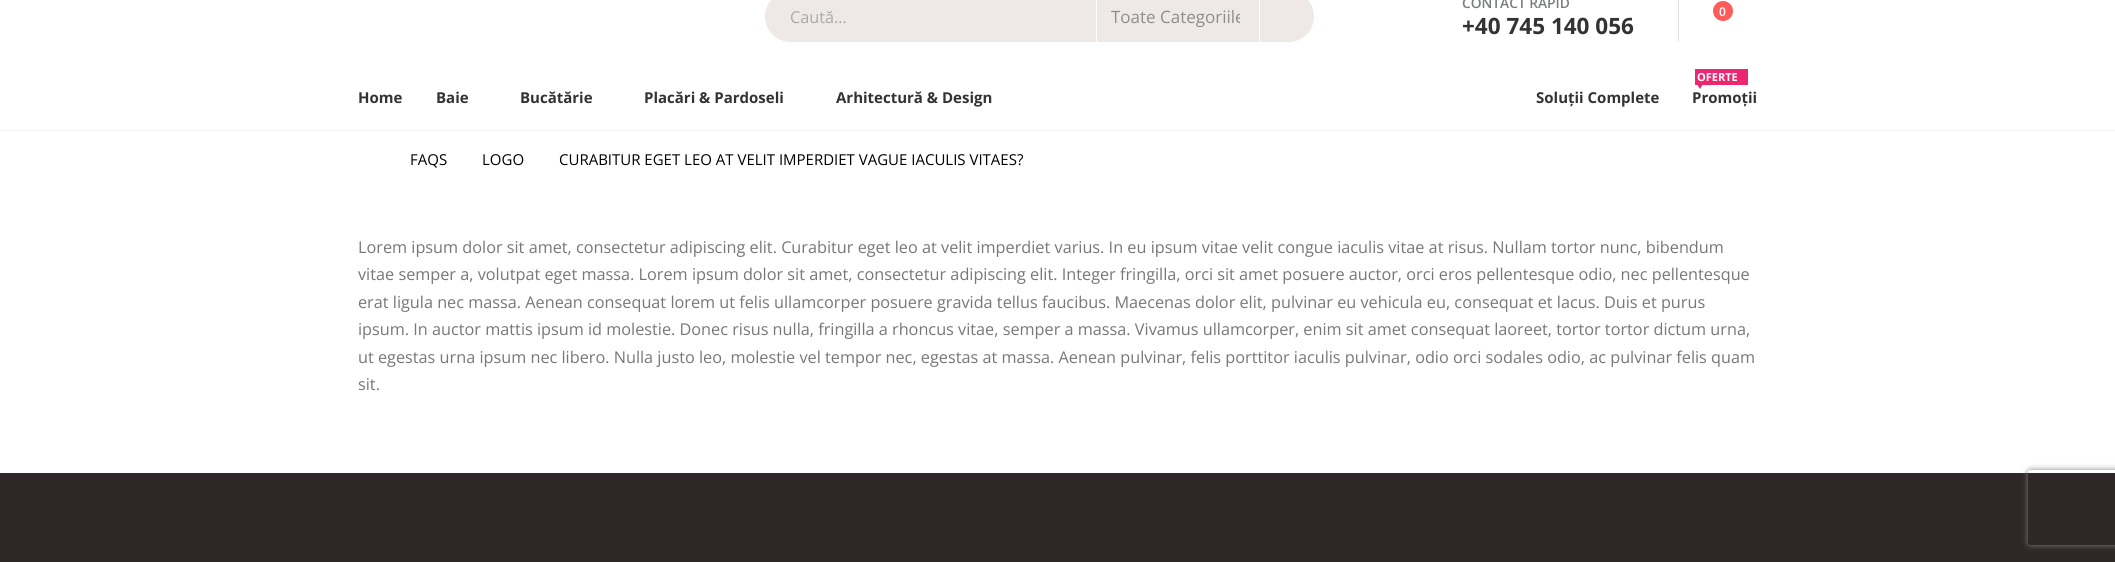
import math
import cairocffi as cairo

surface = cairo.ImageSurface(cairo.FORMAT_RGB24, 2115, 562)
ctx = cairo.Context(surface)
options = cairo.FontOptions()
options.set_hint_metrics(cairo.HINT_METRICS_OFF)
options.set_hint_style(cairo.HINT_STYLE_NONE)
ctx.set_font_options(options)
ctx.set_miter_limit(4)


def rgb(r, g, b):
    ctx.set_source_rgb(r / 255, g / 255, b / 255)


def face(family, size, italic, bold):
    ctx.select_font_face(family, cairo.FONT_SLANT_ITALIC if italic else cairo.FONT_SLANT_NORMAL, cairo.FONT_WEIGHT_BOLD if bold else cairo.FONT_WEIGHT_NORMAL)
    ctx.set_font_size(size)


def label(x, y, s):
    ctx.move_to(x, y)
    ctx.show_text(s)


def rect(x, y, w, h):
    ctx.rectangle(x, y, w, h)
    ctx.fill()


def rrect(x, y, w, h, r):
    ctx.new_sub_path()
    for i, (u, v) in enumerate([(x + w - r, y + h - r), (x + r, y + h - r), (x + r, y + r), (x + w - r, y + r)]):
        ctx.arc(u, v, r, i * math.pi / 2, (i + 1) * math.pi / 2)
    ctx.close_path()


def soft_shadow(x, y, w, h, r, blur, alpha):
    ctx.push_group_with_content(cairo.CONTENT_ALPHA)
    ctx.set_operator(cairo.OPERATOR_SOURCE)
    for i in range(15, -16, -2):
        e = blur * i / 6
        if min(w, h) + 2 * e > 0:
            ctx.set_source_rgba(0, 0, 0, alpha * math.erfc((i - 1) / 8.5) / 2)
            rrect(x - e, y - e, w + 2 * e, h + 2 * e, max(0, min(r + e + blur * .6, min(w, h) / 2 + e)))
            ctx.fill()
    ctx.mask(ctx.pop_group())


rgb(255, 255, 255)
ctx.paint()
rgb(238, 233, 230)
rrect(764.5, -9.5, 550, 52, 26)
ctx.fill_preserve()
rgb(255, 255, 255)
ctx.set_line_width(1)
ctx.stroke()
rect(1096, 0, 1, 41)
face('Open Sans', 16.25, 0, 0)
rgb(170, 169, 168)
label(790, 23, 'Caută…')
rgb(255, 255, 255)
rect(1259, 0, 1, 41)
ctx.save()
ctx.rectangle(1110, 0, 130, 41)
ctx.clip()
face('Open Sans', 17, 0, 0)
rgb(141, 141, 141)
label(1111, 23, 'Toate Categoriile')
ctx.restore()
rgb(221, 224, 226)
rect(1678, 0, 1, 41)
face('Open Sans SemiBold', 13.75, 0, 0)
rgb(120, 125, 127)
label(1462, 8, 'CONTACT RAPID')
face('Open Sans', 22.5, 0, 1)
rgb(51, 51, 51)
label(1462, 34, '+40 745 140 056')
rgb(255, 91, 91)
ctx.new_path()
ctx.arc(1723, 11, 10, 0, 2 * math.pi)
ctx.fill()
face('Open Sans SemiBold', 12, 0, 0)
rgb(255, 255, 255)
label(1719, 16, '0')
face('Open Sans', 15, 0, 1)
rgb(51, 51, 51)
label(358, 103, 'Home')
label(436, 103, 'Baie')
label(520, 103, 'Bucătărie')
label(644, 103, 'Placări & Pardoseli')
label(836, 103, 'Arhitectură & Design')
label(1536, 103, 'Soluții Complete')
rgb(235, 39, 113)
rect(1695, 69, 53, 16)
face('Open Sans', 11, 0, 1)
rgb(255, 255, 255)
label(1697, 81, 'OFERTE')
rgb(235, 39, 113)
ctx.new_path()
ctx.move_to(1697.5, 85)
ctx.line_to(1702.5, 85)
ctx.line_to(1700, 89)
ctx.close_path()
ctx.fill()
face('Open Sans', 15, 0, 1)
rgb(51, 51, 51)
label(1692, 103, 'Promoții')
rgb(243, 243, 243)
rect(0, 130, 2115, 1)
face('Open Sans', 15, 0, 0)
rgb(0, 0, 0)
label(410, 165, 'FAQS')
label(482, 165, 'LOGO')
label(559, 165, 'CURABITUR EGET LEO AT VELIT IMPERDIET VAGUE IACULIS VITAES?')
face('Open Sans', 16.25, 0, 0)
rgb(119, 119, 119)
label(358, 253, 'Lorem ipsum dolor sit amet, consectetur adipiscing elit. Curabitur eget leo at velit imperdiet varius. In eu ipsum vitae velit congue iaculis vitae at risus. Nullam tortor nunc, bibendum')
label(358, 280, 'vitae semper a, volutpat eget massa. Lorem ipsum dolor sit amet, consectetur adipiscing elit. Integer fringilla, orci sit amet posuere auctor, orci eros pellentesque odio, nec pellentesque')
label(358, 308, 'erat ligula nec massa. Aenean consequat lorem ut felis ullamcorper posuere gravida tellus faucibus. Maecenas dolor elit, pulvinar eu vehicula eu, consequat et lacus. Duis et purus')
label(358, 335, 'ipsum. In auctor mattis ipsum id molestie. Donec risus nulla, fringilla a rhoncus vitae, semper a massa. Vivamus ullamcorper, enim sit amet consequat laoreet, tortor tortor dictum urna,')
label(358, 363, 'ut egestas urna ipsum nec libero. Nulla justo leo, molestie vel tempor nec, egestas at massa. Aenean pulvinar, felis porttitor iaculis pulvinar, odio orci sodales odio, ac pulvinar felis quam')
label(358, 390, 'sit.')
rgb(47, 39, 39)
rect(0, 473, 2115, 89)
ctx.save()
ctx.set_fill_rule(cairo.FILL_RULE_EVEN_ODD)
ctx.new_path()
ctx.move_to(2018, 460)
ctx.line_to(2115, 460)
ctx.line_to(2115, 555)
ctx.line_to(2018, 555)
ctx.close_path()
ctx.move_to(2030.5, 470)
ctx.line_to(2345.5, 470)
ctx.curve_to(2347, 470, 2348, 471, 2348, 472.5)
ctx.line_to(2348, 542.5)
ctx.curve_to(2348, 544, 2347, 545, 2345.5, 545)
ctx.line_to(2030.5, 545)
ctx.curve_to(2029, 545, 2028, 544, 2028, 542.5)
ctx.line_to(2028, 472.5)
ctx.curve_to(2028, 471, 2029, 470, 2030.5, 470)
ctx.close_path()
ctx.clip()
rgb(128, 128, 128)
soft_shadow(2028, 470, 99, 75, 2.5, 3, 1)
ctx.restore()
surface.write_to_png('render.png')
